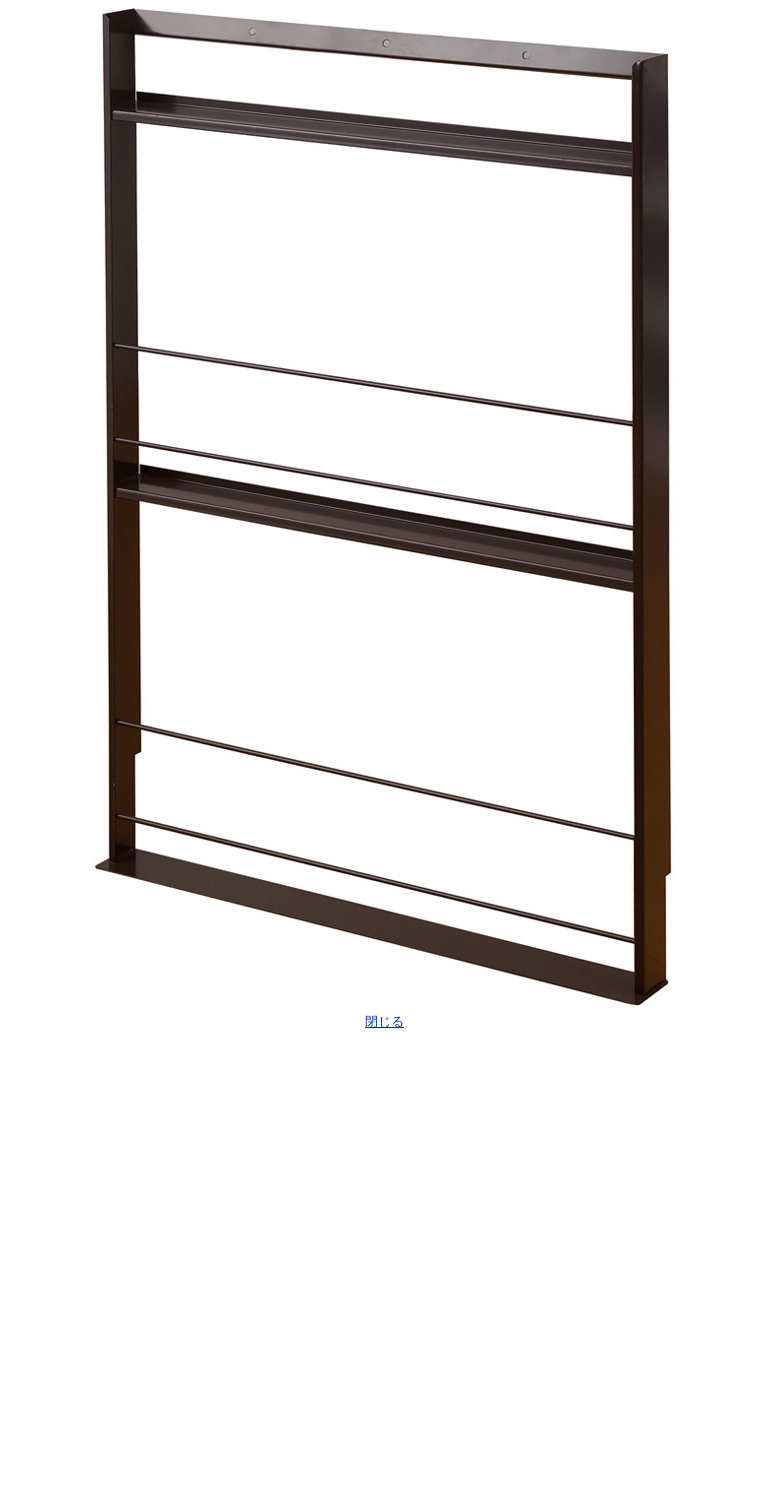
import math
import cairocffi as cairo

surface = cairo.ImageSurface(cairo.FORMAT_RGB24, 769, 1492)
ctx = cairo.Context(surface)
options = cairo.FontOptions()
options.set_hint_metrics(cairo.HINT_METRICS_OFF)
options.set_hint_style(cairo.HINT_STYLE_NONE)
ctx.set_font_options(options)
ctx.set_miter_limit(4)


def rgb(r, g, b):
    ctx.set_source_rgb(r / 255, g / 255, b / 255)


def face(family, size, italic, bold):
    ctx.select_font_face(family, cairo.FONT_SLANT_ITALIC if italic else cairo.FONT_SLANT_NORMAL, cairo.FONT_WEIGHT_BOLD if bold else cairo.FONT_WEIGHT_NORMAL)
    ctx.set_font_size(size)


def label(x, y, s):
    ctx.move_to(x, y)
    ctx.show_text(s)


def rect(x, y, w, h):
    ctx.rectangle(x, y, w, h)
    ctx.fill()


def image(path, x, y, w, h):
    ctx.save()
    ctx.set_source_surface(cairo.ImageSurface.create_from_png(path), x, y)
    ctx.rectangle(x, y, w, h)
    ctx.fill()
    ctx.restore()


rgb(255, 255, 255)
ctx.paint()
image('image0.png', 93, 8, 583, 1000)
rgb(0, 51, 153)
rect(365, 1027, 39, 1)
face('WenQuanYi Zen Hei Medium', 13, 0, 0)
label(365, 1026, '閉じる')
surface.write_to_png('render.png')
